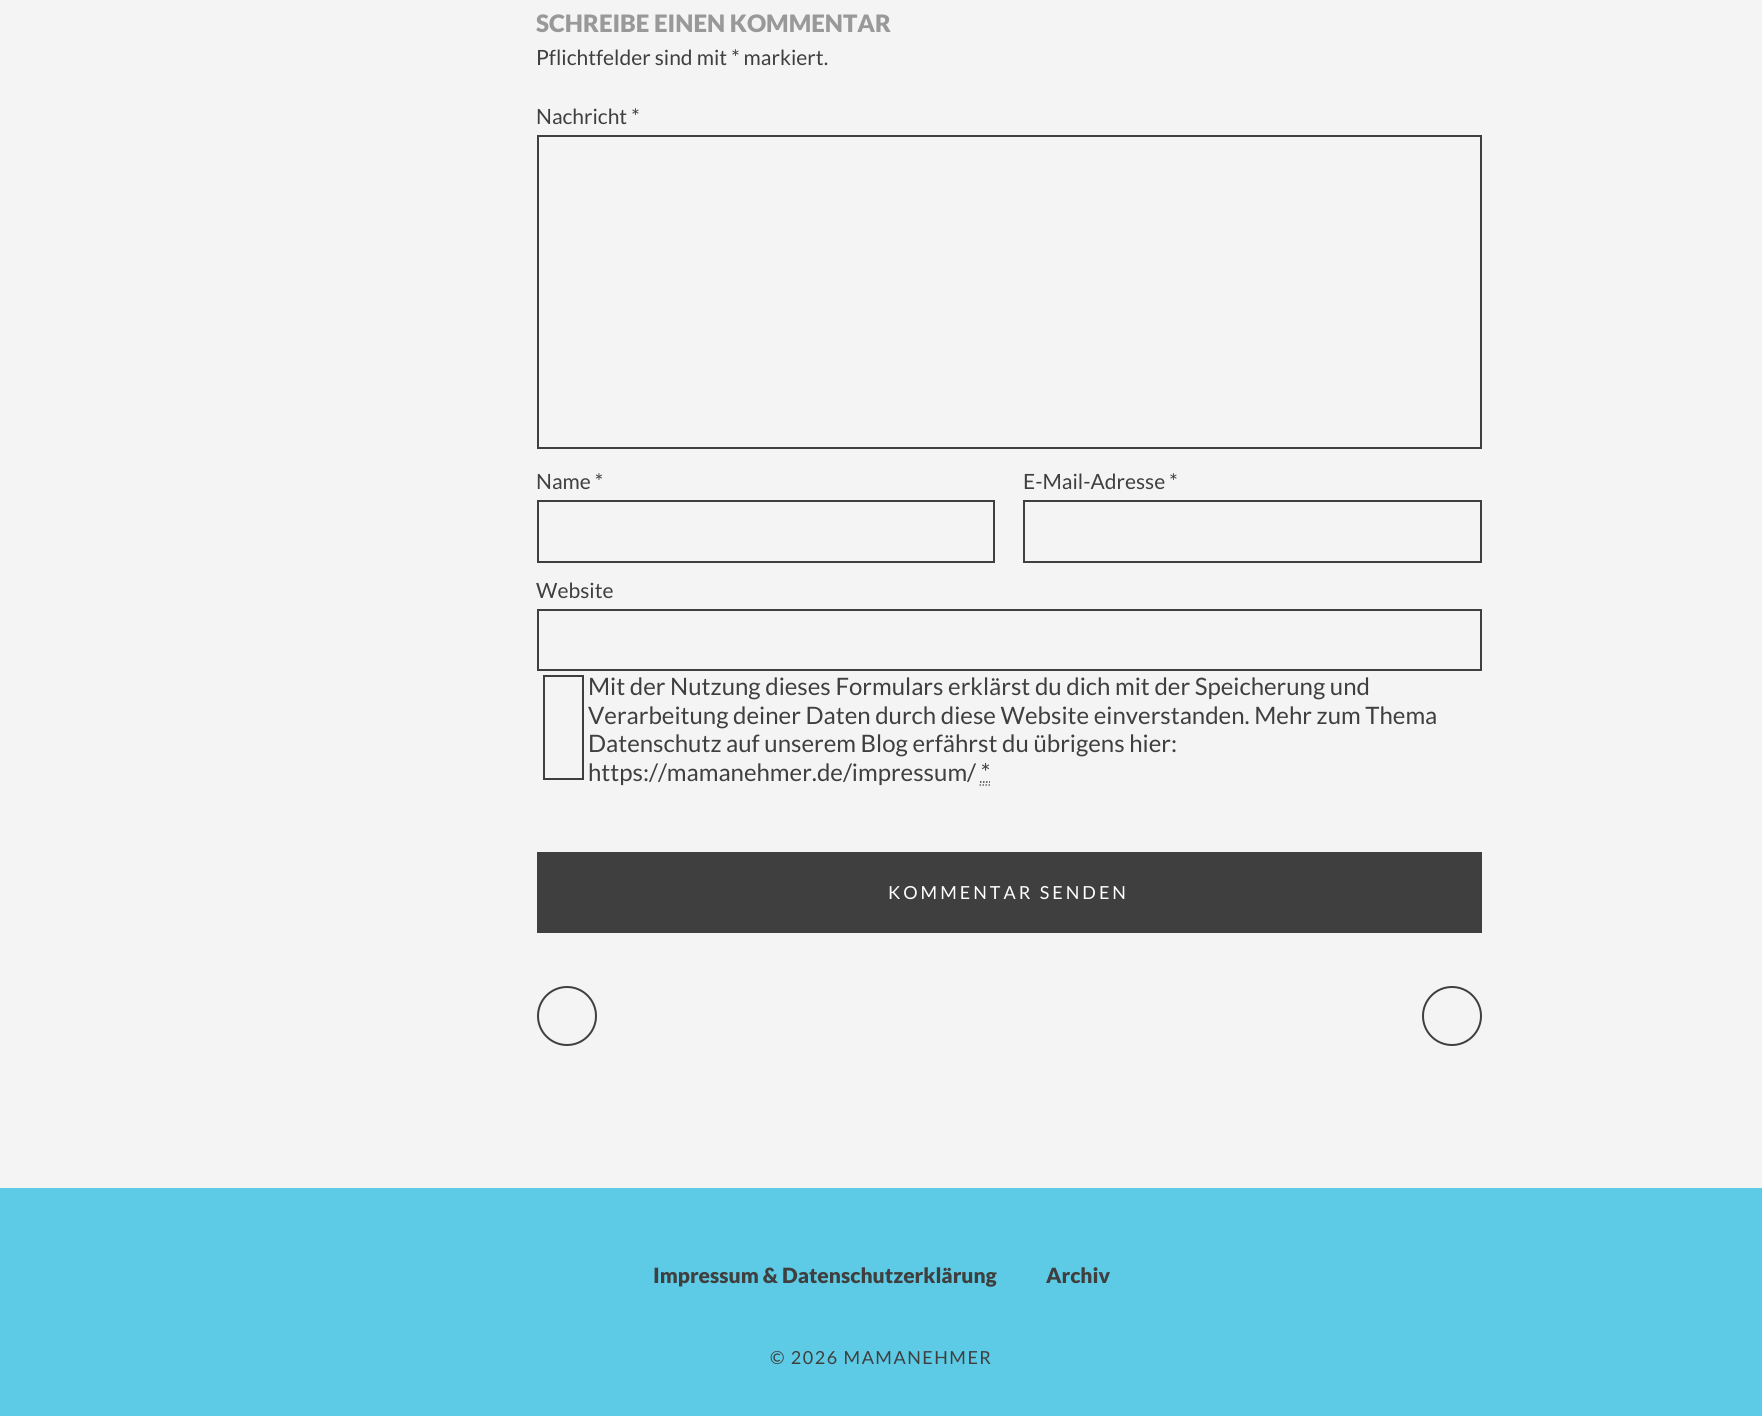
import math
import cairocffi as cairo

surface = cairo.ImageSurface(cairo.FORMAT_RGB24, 1762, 1416)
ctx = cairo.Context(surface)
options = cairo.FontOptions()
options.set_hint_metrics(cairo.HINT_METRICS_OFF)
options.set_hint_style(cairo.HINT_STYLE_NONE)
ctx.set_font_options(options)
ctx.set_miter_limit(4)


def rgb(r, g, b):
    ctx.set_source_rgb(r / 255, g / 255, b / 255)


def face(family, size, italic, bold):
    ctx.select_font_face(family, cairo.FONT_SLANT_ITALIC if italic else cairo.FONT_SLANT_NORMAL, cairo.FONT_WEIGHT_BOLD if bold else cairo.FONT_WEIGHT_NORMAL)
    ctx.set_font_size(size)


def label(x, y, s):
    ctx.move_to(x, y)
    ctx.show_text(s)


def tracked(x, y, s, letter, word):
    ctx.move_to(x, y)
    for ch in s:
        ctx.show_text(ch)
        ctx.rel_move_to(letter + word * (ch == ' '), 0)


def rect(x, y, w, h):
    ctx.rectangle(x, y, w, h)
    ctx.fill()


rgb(244, 244, 244)
ctx.paint()
face('Lato Black', 24, 0, 0)
rgb(153, 153, 153)
label(536, 32, 'SCHREIBE EINEN KOMMENTAR')
face('Lato', 21, 0, 0)
rgb(63, 63, 63)
label(536, 65, 'Pflichtfelder sind mit * markiert.')
label(536, 124, 'Nachricht *')
ctx.rectangle(538, 136, 943, 312)
ctx.stroke()
label(536, 489, 'Name *')
ctx.rectangle(538, 501, 456, 61)
ctx.stroke()
label(1023, 489, 'E-Mail-Adresse *')
ctx.rectangle(1024, 501, 457, 61)
ctx.stroke()
label(536, 598, 'Website')
ctx.rectangle(538, 610, 943, 60)
ctx.stroke()
ctx.rectangle(544, 676, 39, 103)
ctx.stroke()
face('Lato', 24, 0, 0)
label(588, 695, 'Mit der Nutzung dieses Formulars erklärst du dich mit der Speicherung und')
label(588, 724, 'Verarbeitung deiner Daten durch diese Website einverstanden. Mehr zum Thema')
label(588, 752, 'Datenschutz auf unserem Blog erfährst du übrigens hier:')
label(588, 781, 'https://mamanehmer.de/impressum/ *')
ctx.new_path()
ctx.move_to(980, 782)
ctx.line_to(981.5, 782)
ctx.move_to(983, 782)
ctx.line_to(984.5, 782)
ctx.move_to(986, 782)
ctx.line_to(987.5, 782)
ctx.move_to(989, 782)
ctx.line_to(990, 782)
ctx.set_line_width(1.5)
ctx.stroke()
ctx.new_path()
ctx.move_to(979.5, 785)
ctx.line_to(981, 785)
ctx.move_to(982.5, 785)
ctx.line_to(984, 785)
ctx.move_to(985.5, 785)
ctx.line_to(987, 785)
ctx.move_to(988.5, 785)
ctx.line_to(990, 785)
rgb(102, 102, 102)
ctx.stroke()
rgb(63, 63, 63)
rect(537, 852, 945, 81)
face('Lato', 18, 0, 0)
rgb(255, 255, 255)
tracked(888, 899, 'KOMMENTAR SENDEN', 3, 0)
ctx.new_path()
ctx.arc(567, 1016, 29, 0, 2 * math.pi)
rgb(63, 63, 63)
ctx.set_line_width(2)
ctx.stroke()
ctx.arc(1452, 1016, 29, 0, 2 * math.pi)
ctx.stroke()
rgb(93, 203, 229)
rect(0, 1188, 1762, 228)
face('Lato Black', 21, 0, 0)
rgb(63, 63, 63)
label(653, 1283, 'Impressum & Datenschutzerklärung')
label(1046, 1283, 'Archiv')
face('Lato', 18, 0, 0)
tracked(770, 1364, '© 2026 MAMANEHMER', 1.5, 0)
surface.write_to_png('render.png')
